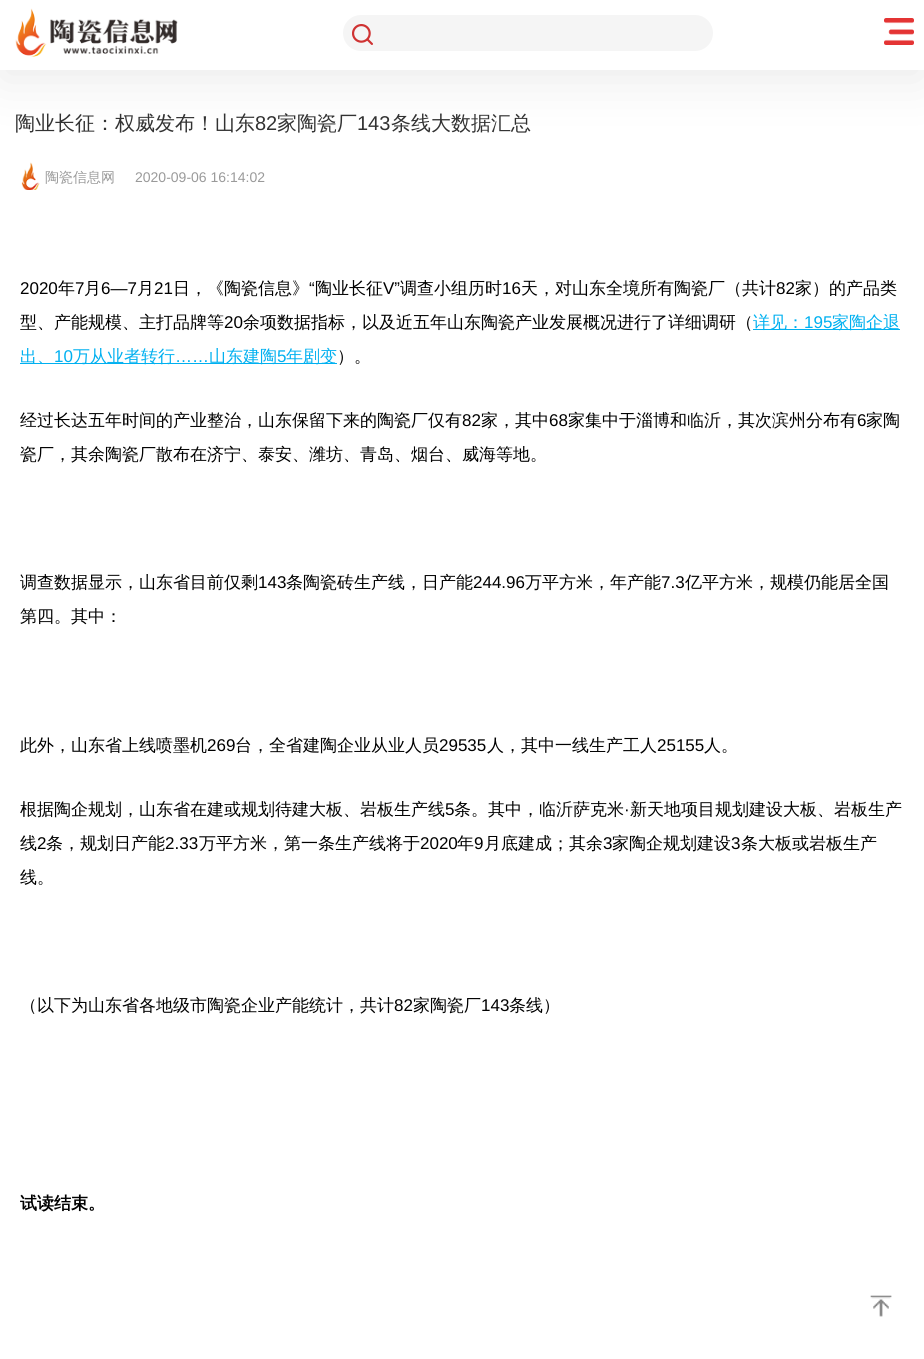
import math
import cairocffi as cairo

surface = cairo.ImageSurface(cairo.FORMAT_RGB24, 924, 1359)
ctx = cairo.Context(surface)
options = cairo.FontOptions()
options.set_hint_metrics(cairo.HINT_METRICS_OFF)
options.set_hint_style(cairo.HINT_STYLE_NONE)
ctx.set_font_options(options)
ctx.set_miter_limit(4)


def rgb(r, g, b):
    ctx.set_source_rgb(r / 255, g / 255, b / 255)


def face(family, size, italic, bold):
    ctx.select_font_face(family, cairo.FONT_SLANT_ITALIC if italic else cairo.FONT_SLANT_NORMAL, cairo.FONT_WEIGHT_BOLD if bold else cairo.FONT_WEIGHT_NORMAL)
    ctx.set_font_size(size)


def label(x, y, s):
    ctx.move_to(x, y)
    ctx.show_text(s)


def rect(x, y, w, h):
    ctx.rectangle(x, y, w, h)
    ctx.fill()


def rrect(x, y, w, h, r):
    ctx.new_sub_path()
    for i, (u, v) in enumerate([(x + w - r, y + h - r), (x + r, y + h - r), (x + r, y + r), (x + w - r, y + r)]):
        ctx.arc(u, v, r, i * math.pi / 2, (i + 1) * math.pi / 2)
    ctx.close_path()


def soft_shadow(x, y, w, h, r, blur, alpha):
    ctx.push_group_with_content(cairo.CONTENT_ALPHA)
    ctx.set_operator(cairo.OPERATOR_SOURCE)
    for i in range(15, -16, -2):
        e = blur * i / 6
        if min(w, h) + 2 * e > 0:
            ctx.set_source_rgba(0, 0, 0, alpha * math.erfc((i - 1) / 8.5) / 2)
            rrect(x - e, y - e, w + 2 * e, h + 2 * e, max(0, min(r + e + blur * .6, min(w, h) / 2 + e)))
            ctx.fill()
    ctx.mask(ctx.pop_group())


def image(path, x, y, w, h):
    ctx.save()
    ctx.set_source_surface(cairo.ImageSurface.create_from_png(path), x, y)
    ctx.rectangle(x, y, w, h)
    ctx.fill()
    ctx.restore()


rgb(255, 255, 255)
ctx.paint()
ctx.save()
ctx.rectangle(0, 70, 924, 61)
ctx.clip()
rgb(235, 235, 235)
soft_shadow(0, 10, 924, 70, 0, 25, 1)
ctx.restore()
image('image0.png', 15, 8, 163, 49)
rgb(245, 245, 245)
rrect(343, 15, 370, 36, 18)
ctx.fill()
image('image1.png', 352, 24, 21, 21)
image('image2.png', 884, 18, 30, 27)
face('WenQuanYi Zen Hei Medium', 20, 0, 0)
rgb(50, 50, 50)
label(15, 130, '陶业长征：权威发布！山东')
face('Liberation Sans', 20, 0, 0)
label(255, 130, '82')
face('WenQuanYi Zen Hei Medium', 20, 0, 0)
label(277, 130, '家陶瓷厂')
face('Liberation Sans', 20, 0, 0)
label(357, 130, '143')
face('WenQuanYi Zen Hei Medium', 20, 0, 0)
label(391, 130, '条线大数据汇总')
image('image3.png', 21, 162, 19, 28)
face('WenQuanYi Zen Hei Medium', 14, 0, 0)
rgb(154, 154, 154)
label(45, 182, '陶瓷信息网')
face('Liberation Sans', 14, 0, 0)
label(135, 182, '2020-09-06 16:14:02')
face('Liberation Sans', 17, 0, 0)
rgb(0, 0, 0)
label(20, 294, '2020')
face('WenQuanYi Zen Hei Medium', 17, 0, 0)
label(58, 294, '年')
face('Liberation Sans', 17, 0, 0)
label(75, 294, '7')
face('WenQuanYi Zen Hei Medium', 17, 0, 0)
label(84, 294, '月')
face('Liberation Sans', 17, 0, 0)
label(101, 294, '6—7')
face('WenQuanYi Zen Hei Medium', 17, 0, 0)
label(137, 294, '月')
face('Liberation Sans', 17, 0, 0)
label(154, 294, '21')
face('WenQuanYi Zen Hei Medium', 17, 0, 0)
label(173, 294, '日，《陶瓷信息》')
face('Liberation Sans', 17, 0, 0)
label(309, 294, '“')
face('WenQuanYi Zen Hei Medium', 17, 0, 0)
label(315, 294, '陶业长征')
face('Liberation Sans', 17, 0, 0)
label(383, 294, 'V”')
face('WenQuanYi Zen Hei Medium', 17, 0, 0)
label(400, 294, '调查小组历时')
face('Liberation Sans', 17, 0, 0)
label(502, 294, '16')
face('WenQuanYi Zen Hei Medium', 17, 0, 0)
label(521, 294, '天，对山东全境所有陶瓷厂（共计')
face('Liberation Sans', 17, 0, 0)
label(776, 294, '82')
face('WenQuanYi Zen Hei Medium', 17, 0, 0)
label(795, 294, '家）的产品类')
label(20, 328, '型、产能规模、主打品牌等')
face('Liberation Sans', 17, 0, 0)
label(224, 328, '20')
face('WenQuanYi Zen Hei Medium', 17, 0, 0)
label(243, 328, '余项数据指标，以及近五年山东陶瓷产业发展概况进行了详细调研（')
rgb(0, 176, 240)
rect(753, 329, 147, 1)
label(753, 328, '详见：')
face('Liberation Sans', 17, 0, 0)
label(804, 328, '195')
face('WenQuanYi Zen Hei Medium', 17, 0, 0)
label(832, 328, '家陶企退')
rect(20, 363, 317, 1)
label(20, 362, '出、')
face('Liberation Sans', 17, 0, 0)
label(54, 362, '10')
face('WenQuanYi Zen Hei Medium', 17, 0, 0)
label(73, 362, '万从业者转行')
face('Liberation Sans', 17, 0, 0)
label(175, 362, '……')
face('WenQuanYi Zen Hei Medium', 17, 0, 0)
label(209, 362, '山东建陶')
face('Liberation Sans', 17, 0, 0)
label(277, 362, '5')
face('WenQuanYi Zen Hei Medium', 17, 0, 0)
label(286, 362, '年剧变')
rgb(0, 0, 0)
label(337, 362, '）。')
label(20, 426, '经过长达五年时间的产业整治，山东保留下来的陶瓷厂仅有')
face('Liberation Sans', 17, 0, 0)
label(462, 426, '82')
face('WenQuanYi Zen Hei Medium', 17, 0, 0)
label(481, 426, '家，其中')
face('Liberation Sans', 17, 0, 0)
label(549, 426, '68')
face('WenQuanYi Zen Hei Medium', 17, 0, 0)
label(568, 426, '家集中于淄博和临沂，其次滨州分布有')
face('Liberation Sans', 17, 0, 0)
label(857, 426, '6')
face('WenQuanYi Zen Hei Medium', 17, 0, 0)
label(866, 426, '家陶')
label(20, 460, '瓷厂，其余陶瓷厂散布在济宁、泰安、潍坊、青岛、烟台、威海等地。')
label(20, 588, '调查数据显示，山东省目前仅剩')
face('Liberation Sans', 17, 0, 0)
label(258, 588, '143')
face('WenQuanYi Zen Hei Medium', 17, 0, 0)
label(286, 588, '条陶瓷砖生产线，日产能')
face('Liberation Sans', 17, 0, 0)
label(473, 588, '244.96')
face('WenQuanYi Zen Hei Medium', 17, 0, 0)
label(525, 588, '万平方米，年产能')
face('Liberation Sans', 17, 0, 0)
label(661, 588, '7.3')
face('WenQuanYi Zen Hei Medium', 17, 0, 0)
label(685, 588, '亿平方米，规模仍能居全国')
label(20, 622, '第四。其中：')
label(20, 751, '此外，山东省上线喷墨机')
face('Liberation Sans', 17, 0, 0)
label(207, 751, '269')
face('WenQuanYi Zen Hei Medium', 17, 0, 0)
label(235, 751, '台，全省建陶企业从业人员')
face('Liberation Sans', 17, 0, 0)
label(439, 751, '29535')
face('WenQuanYi Zen Hei Medium', 17, 0, 0)
label(487, 751, '人，其中一线生产工人')
face('Liberation Sans', 17, 0, 0)
label(657, 751, '25155')
face('WenQuanYi Zen Hei Medium', 17, 0, 0)
label(704, 751, '人。')
label(20, 815, '根据陶企规划，山东省在建或规划待建大板、岩板生产线')
face('Liberation Sans', 17, 0, 0)
label(445, 815, '5')
face('WenQuanYi Zen Hei Medium', 17, 0, 0)
label(454, 815, '条。其中，临沂萨克米')
face('Liberation Sans', 17, 0, 0)
label(624, 815, '·')
face('WenQuanYi Zen Hei Medium', 17, 0, 0)
label(630, 815, '新天地项目规划建设大板、岩板生产')
label(20, 849, '线')
face('Liberation Sans', 17, 0, 0)
label(37, 849, '2')
face('WenQuanYi Zen Hei Medium', 17, 0, 0)
label(46, 849, '条，规划日产能')
face('Liberation Sans', 17, 0, 0)
label(165, 849, '2.33')
face('WenQuanYi Zen Hei Medium', 17, 0, 0)
label(199, 849, '万平方米，第一条生产线将于')
face('Liberation Sans', 17, 0, 0)
label(420, 849, '2020')
face('WenQuanYi Zen Hei Medium', 17, 0, 0)
label(457, 849, '年')
face('Liberation Sans', 17, 0, 0)
label(474, 849, '9')
face('WenQuanYi Zen Hei Medium', 17, 0, 0)
label(484, 849, '月底建成；其余')
face('Liberation Sans', 17, 0, 0)
label(603, 849, '3')
face('WenQuanYi Zen Hei Medium', 17, 0, 0)
label(612, 849, '家陶企规划建设')
face('Liberation Sans', 17, 0, 0)
label(731, 849, '3')
face('WenQuanYi Zen Hei Medium', 17, 0, 0)
label(741, 849, '条大板或岩板生产')
label(20, 883, '线。')
label(20, 1011, '（以下为山东省各地级市陶瓷企业产能统计，共计')
face('Liberation Sans', 17, 0, 0)
label(394, 1011, '82')
face('WenQuanYi Zen Hei Medium', 17, 0, 0)
label(413, 1011, '家陶瓷厂')
face('Liberation Sans', 17, 0, 0)
label(481, 1011, '143')
face('WenQuanYi Zen Hei Medium', 17, 0, 0)
label(509, 1011, '条线）')
face('WenQuanYi Zen Hei', 17, 0, 1)
label(20, 1209, '试读结束。')
image('image4.png', 870, 1295, 22, 22)
surface.write_to_png('render.png')
